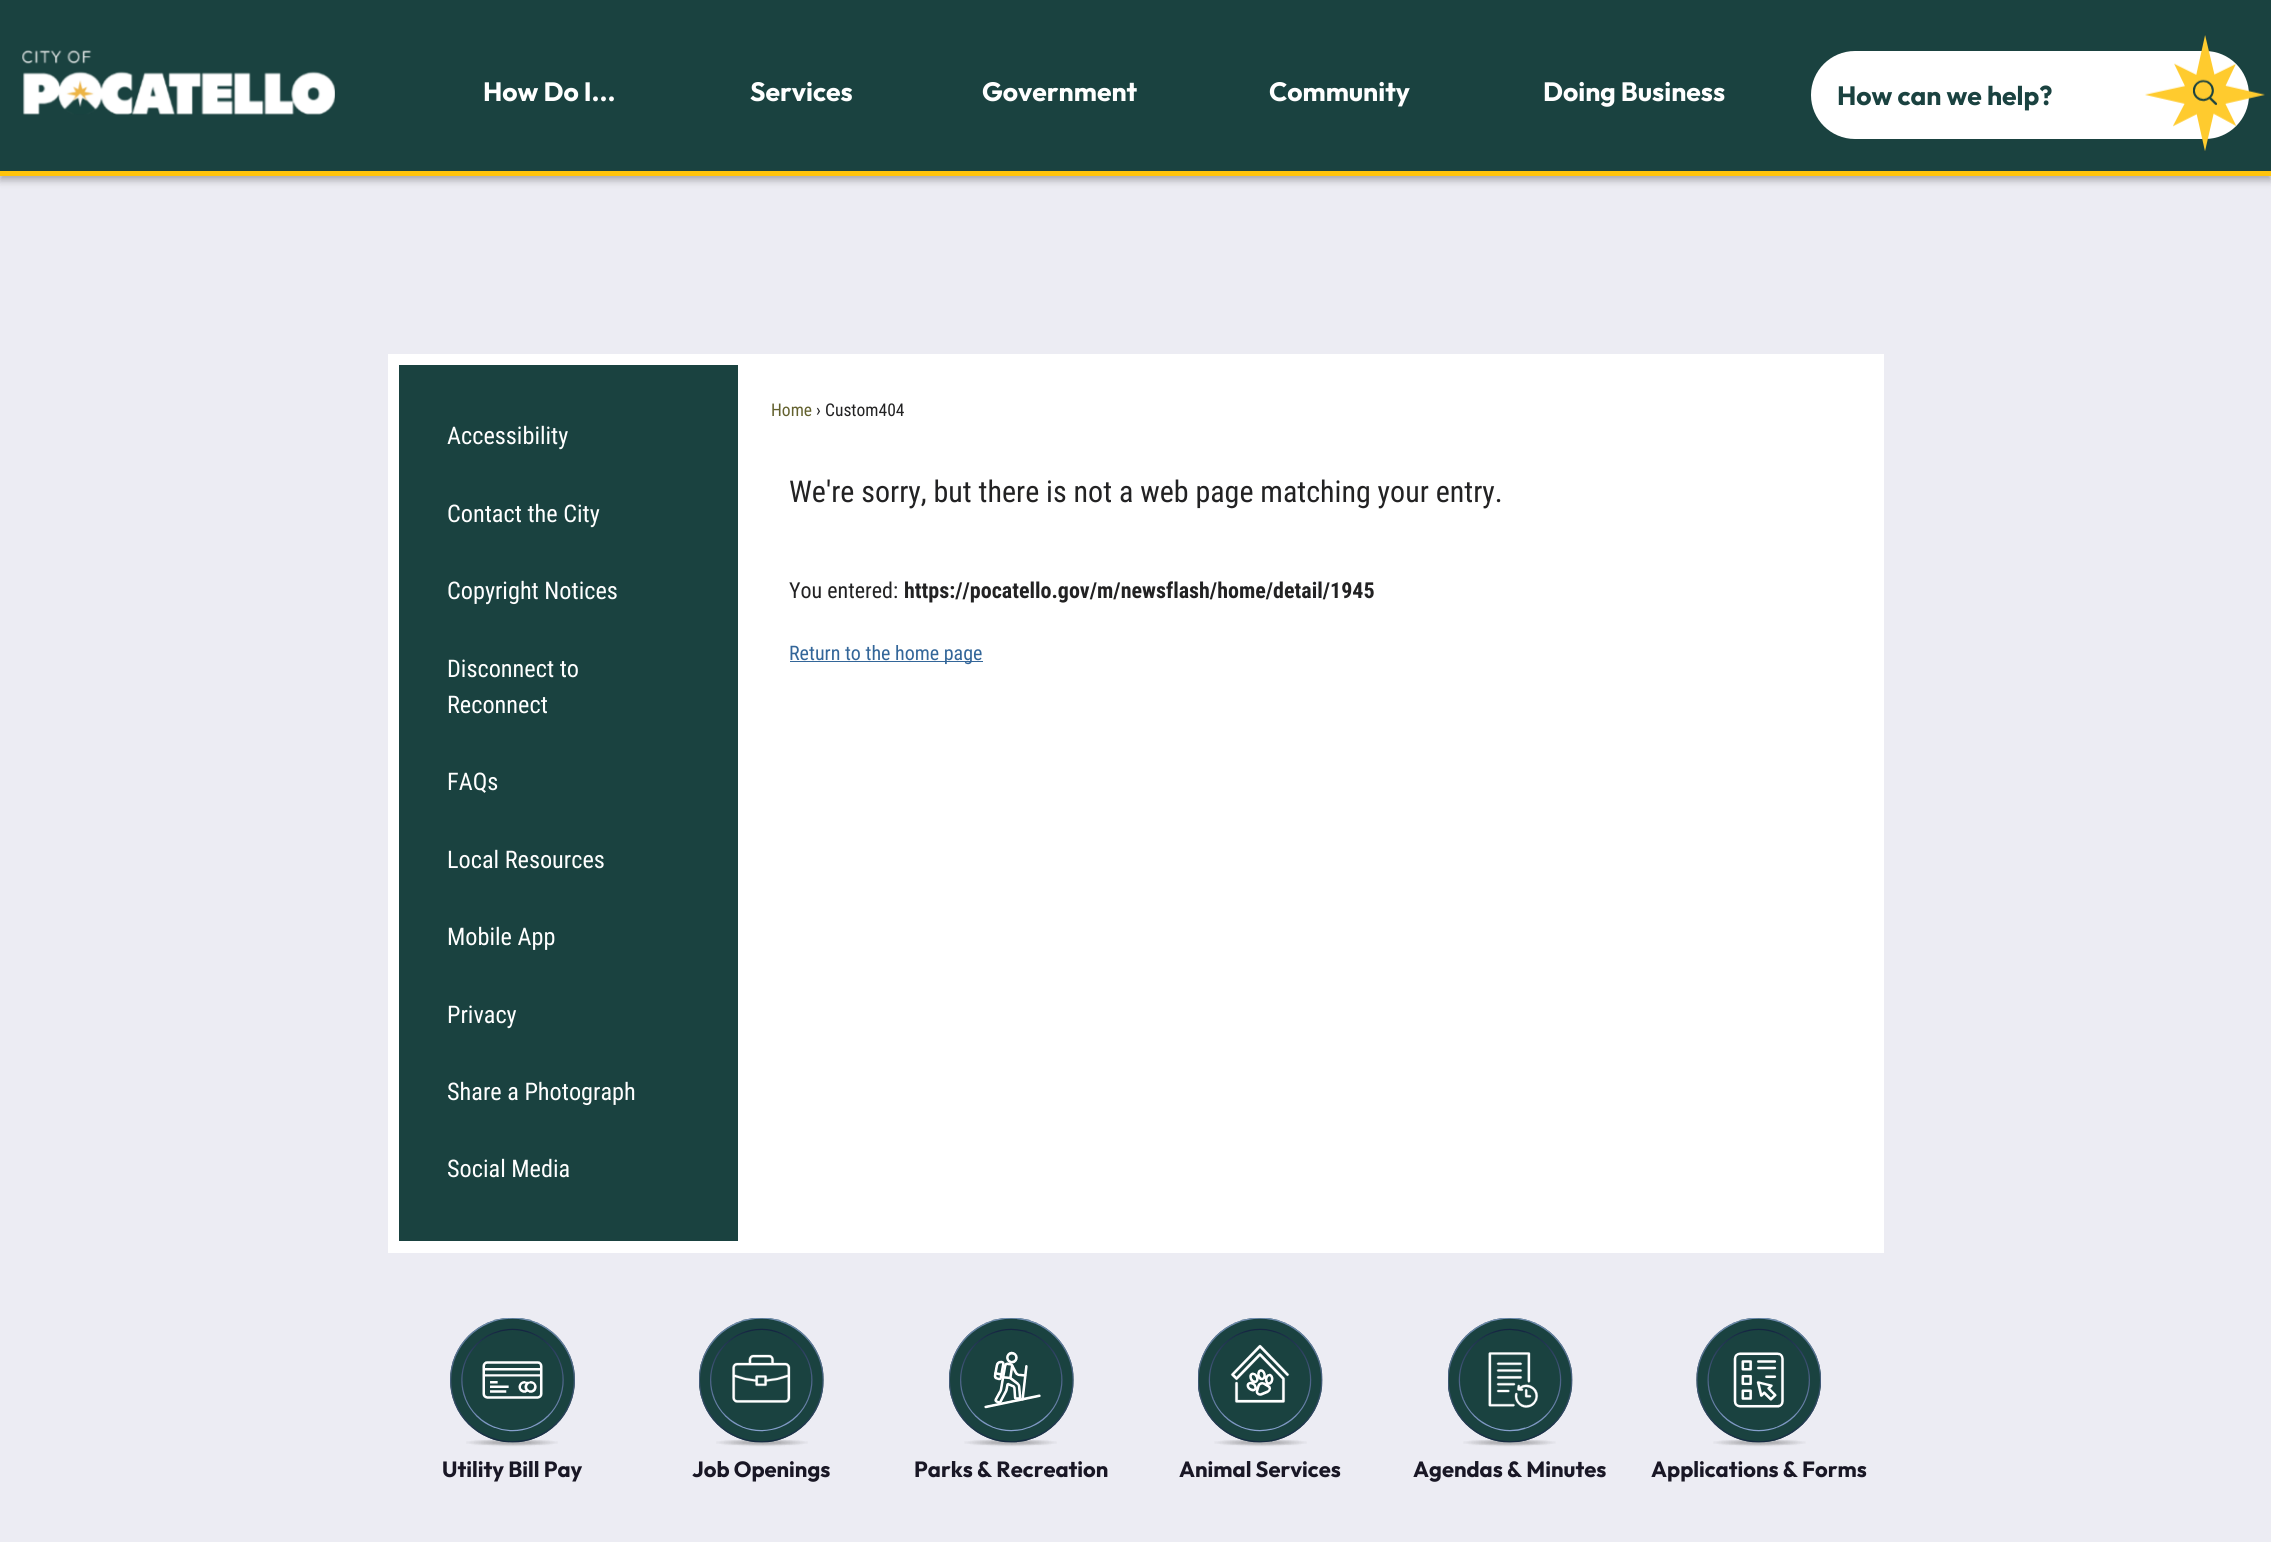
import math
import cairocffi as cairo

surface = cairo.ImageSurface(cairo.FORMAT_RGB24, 2271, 1542)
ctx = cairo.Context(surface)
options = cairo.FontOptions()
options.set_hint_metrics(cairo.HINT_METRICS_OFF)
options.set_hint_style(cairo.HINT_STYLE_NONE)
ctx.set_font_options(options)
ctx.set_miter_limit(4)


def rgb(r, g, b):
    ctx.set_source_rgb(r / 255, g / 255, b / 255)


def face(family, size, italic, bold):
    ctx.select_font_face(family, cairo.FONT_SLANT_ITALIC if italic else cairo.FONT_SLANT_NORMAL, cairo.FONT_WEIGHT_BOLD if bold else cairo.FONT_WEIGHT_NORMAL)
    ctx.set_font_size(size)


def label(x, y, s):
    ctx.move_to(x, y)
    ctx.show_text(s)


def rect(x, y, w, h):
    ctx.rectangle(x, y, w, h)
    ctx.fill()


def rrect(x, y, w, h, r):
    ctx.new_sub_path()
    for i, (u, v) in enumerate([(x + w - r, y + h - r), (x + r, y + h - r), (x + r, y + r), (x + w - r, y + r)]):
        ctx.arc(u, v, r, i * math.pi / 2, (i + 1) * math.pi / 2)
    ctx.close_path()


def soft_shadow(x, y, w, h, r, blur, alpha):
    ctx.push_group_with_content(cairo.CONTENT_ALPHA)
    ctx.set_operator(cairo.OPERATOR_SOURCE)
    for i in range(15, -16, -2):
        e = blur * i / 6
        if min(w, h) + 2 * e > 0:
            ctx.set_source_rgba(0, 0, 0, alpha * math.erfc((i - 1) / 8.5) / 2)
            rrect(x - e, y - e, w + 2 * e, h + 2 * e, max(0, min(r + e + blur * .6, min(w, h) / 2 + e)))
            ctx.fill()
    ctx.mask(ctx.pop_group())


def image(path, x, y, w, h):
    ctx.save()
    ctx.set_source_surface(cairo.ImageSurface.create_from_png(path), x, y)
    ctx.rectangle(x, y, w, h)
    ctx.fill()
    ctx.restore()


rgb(236, 236, 243)
ctx.paint()
rgb(0, 0, 0)
soft_shadow(0, 3, 2271, 177, 0, 4, 0.3)
rgb(26, 66, 64)
rect(0, 0, 2271, 171)
rgb(255, 196, 12)
rect(0, 171, 2271, 5)
image('image0.png', 22, 50, 313, 65)
face('Outfit Thin', 26.5, 0, 0)
rgb(255, 255, 255)
label(483, 101, 'How Do I...')
label(750, 101, 'Services')
label(982, 101, 'Government')
label(1269, 101, 'Community')
label(1543, 101, 'Doing Business')
rrect(1811, 51, 438, 88, 44)
ctx.fill()
rgb(26, 66, 64)
label(1837, 105, 'How can we help?')
image('image1.png', 2145, 35, 120, 116)
rgb(255, 255, 255)
rect(388, 354, 1496, 899)
rgb(26, 66, 64)
rect(399, 365, 339, 876)
face('Roboto Condensed', 24.25, 0, 0)
rgb(255, 255, 255)
label(447, 444, 'Accessibility')
label(447, 522, 'Contact the City')
label(447, 599, 'Copyright Notices')
label(447, 677, 'Disconnect to')
label(447, 713, 'Reconnect')
label(447, 790, 'FAQs')
label(447, 868, 'Local Resources')
label(447, 945, 'Mobile App')
label(447, 1023, 'Privacy')
label(447, 1100, 'Share a Photograph')
label(447, 1177, 'Social Media')
face('Roboto Condensed', 17.5, 0, 0)
rgb(99, 97, 46)
label(771, 416, 'Home')
rgb(34, 34, 35)
label(816, 416, '›')
label(825, 416, 'Custom404')
face('Roboto Condensed', 30, 0, 0)
label(789, 502, 'We\'re sorry, but there is not a web page matching your entry.')
face('Roboto Condensed', 22, 0, 0)
label(789, 598, 'You entered:')
face('Roboto Condensed', 22, 0, 1)
label(904, 598, 'https://pocatello.gov/m/newsflash/home/detail/1945')
rgb(51, 102, 153)
rect(790, 661, 193, 1)
face('Roboto Condensed', 20, 0, 0)
label(789, 660, 'Return to the home page')
image('image2.png', 466, 1439, 92, 8)
image('image3.png', 450, 1318, 125, 125)
face('Outfit Thin', 22, 0, 0)
rgb(25, 23, 37)
label(442, 1477, 'Utility Bill Pay')
image('image2.png', 716, 1439, 92, 8)
image('image4.png', 699, 1318, 125, 125)
label(692, 1477, 'Job Openings')
image('image5.png', 964, 1439, 93, 8)
image('image6.png', 949, 1318, 125, 125)
label(914, 1477, 'Parks & Recreation')
image('image5.png', 1214, 1439, 93, 8)
image('image7.png', 1198, 1318, 125, 125)
label(1179, 1477, 'Animal Services')
image('image8.png', 1463, 1439, 93, 8)
image('image9.png', 1448, 1318, 125, 125)
label(1413, 1477, 'Agendas & Minutes')
image('image10.png', 1713, 1439, 93, 8)
image('image11.png', 1696, 1318, 125, 125)
label(1651, 1477, 'Applications & Forms')
surface.write_to_png('render.png')
